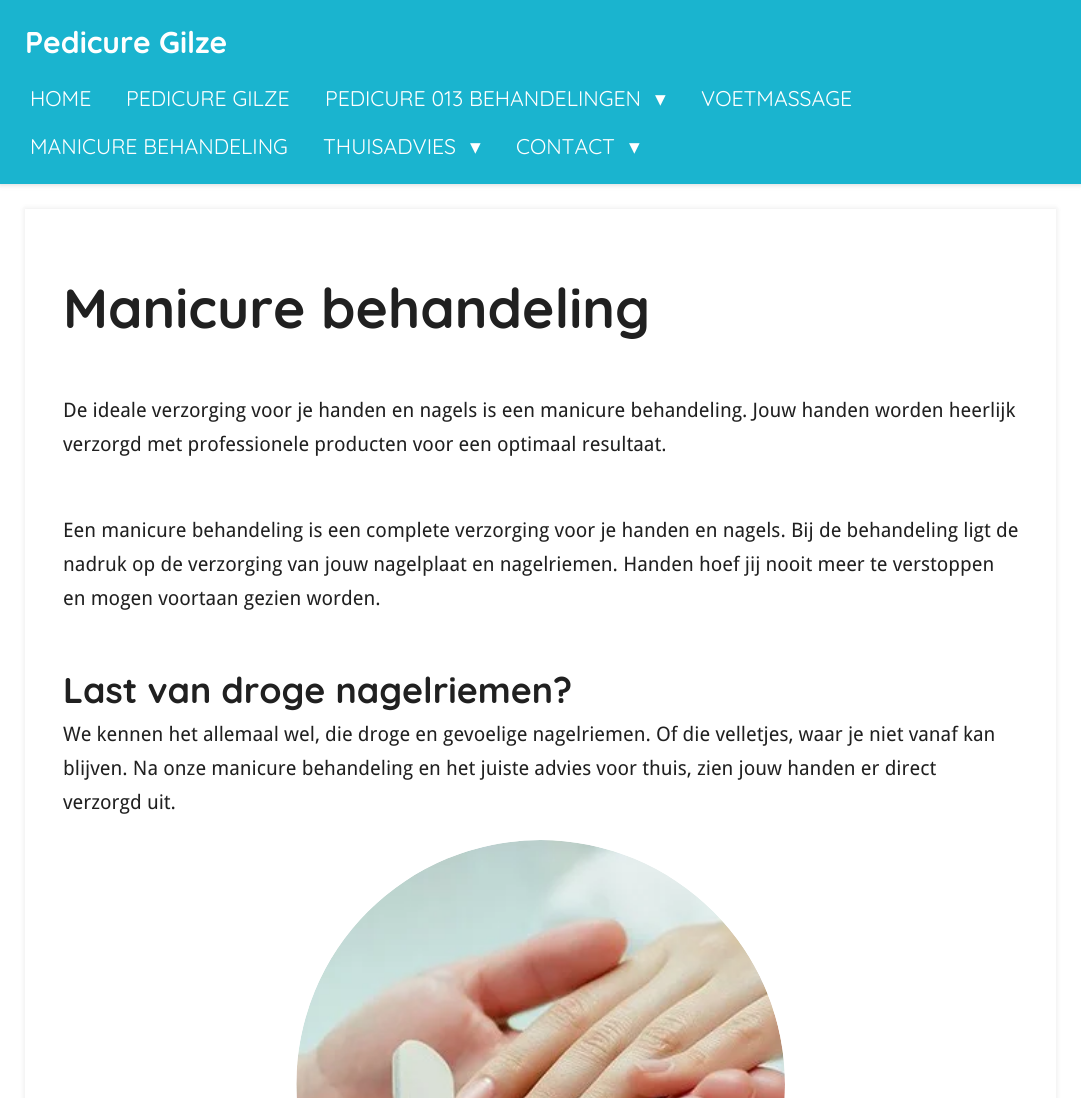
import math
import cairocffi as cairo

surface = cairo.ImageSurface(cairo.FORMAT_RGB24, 1081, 1098)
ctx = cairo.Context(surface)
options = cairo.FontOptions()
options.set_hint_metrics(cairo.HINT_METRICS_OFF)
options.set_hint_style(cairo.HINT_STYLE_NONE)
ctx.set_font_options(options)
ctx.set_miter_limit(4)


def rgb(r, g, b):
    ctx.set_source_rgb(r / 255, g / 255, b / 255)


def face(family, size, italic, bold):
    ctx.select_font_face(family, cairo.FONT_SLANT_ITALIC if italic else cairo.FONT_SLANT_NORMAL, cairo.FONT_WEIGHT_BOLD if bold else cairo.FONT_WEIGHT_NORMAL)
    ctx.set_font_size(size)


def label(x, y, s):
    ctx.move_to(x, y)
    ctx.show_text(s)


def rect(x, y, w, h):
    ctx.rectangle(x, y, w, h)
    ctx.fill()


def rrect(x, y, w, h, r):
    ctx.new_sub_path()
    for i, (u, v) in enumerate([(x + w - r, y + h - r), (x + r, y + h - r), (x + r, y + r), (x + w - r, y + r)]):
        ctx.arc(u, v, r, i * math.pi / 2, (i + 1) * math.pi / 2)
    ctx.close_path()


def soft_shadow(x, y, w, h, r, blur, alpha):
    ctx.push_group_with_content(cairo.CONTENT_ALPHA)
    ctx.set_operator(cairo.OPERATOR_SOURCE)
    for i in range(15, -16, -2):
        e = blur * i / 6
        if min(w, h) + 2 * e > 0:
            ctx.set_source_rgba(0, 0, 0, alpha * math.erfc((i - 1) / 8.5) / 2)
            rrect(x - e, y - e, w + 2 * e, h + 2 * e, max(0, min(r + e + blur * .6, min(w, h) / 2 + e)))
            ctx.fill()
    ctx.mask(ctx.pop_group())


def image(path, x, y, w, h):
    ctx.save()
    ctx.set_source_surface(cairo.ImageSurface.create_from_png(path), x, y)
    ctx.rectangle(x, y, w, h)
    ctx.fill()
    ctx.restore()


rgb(255, 255, 255)
ctx.paint()
rgb(0, 0, 0)
soft_shadow(0, 0, 1081, 184, 0, 3, 0.2)
rgb(26, 180, 207)
rect(0, 0, 1081, 184)
face('Quicksand', 30, 0, 1)
rgb(255, 255, 255)
label(25, 53, 'Pedicure Gilze')
face('Quicksand', 21.25, 0, 0)
label(30, 106, 'HOME')
label(126, 106, 'PEDICURE GILZE')
label(325, 106, 'PEDICURE 013 BEHANDELINGEN')
face('DejaVu Sans', 21.25, 0, 0)
label(655, 106, '▾')
face('Quicksand', 21.25, 0, 0)
label(701, 106, 'VOETMASSAGE')
label(30, 154, 'MANICURE BEHANDELING')
label(323, 154, 'THUISADVIES')
face('DejaVu Sans', 21.25, 0, 0)
label(470, 154, '▾')
face('Quicksand', 21.25, 0, 0)
label(516, 154, 'CONTACT')
face('DejaVu Sans', 21.25, 0, 0)
label(629, 154, '▾')
ctx.save()
ctx.set_fill_rule(cairo.FILL_RULE_EVEN_ODD)
ctx.new_path()
ctx.move_to(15, 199)
ctx.line_to(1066, 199)
ctx.line_to(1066, 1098)
ctx.line_to(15, 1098)
ctx.close_path()
ctx.move_to(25, 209)
ctx.line_to(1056, 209)
ctx.line_to(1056, 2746)
ctx.line_to(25, 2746)
ctx.close_path()
ctx.clip()
rgb(0, 0, 0)
soft_shadow(25, 209, 1031, 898, 0, 3, 0.1)
ctx.restore()
face('Quicksand', 55, 0, 1)
rgb(32, 32, 32)
label(63, 328, 'Manicure behandeling')
face('Droid Sans', 20, 0, 0)
label(63, 417, 'De ideale verzorging voor je handen en nagels is een manicure behandeling. Jouw handen worden heerlijk')
label(63, 451, 'verzorgd met professionele producten voor een optimaal resultaat.')
label(63, 537, 'Een manicure behandeling is een complete verzorging voor je handen en nagels. Bij de behandeling ligt de')
label(63, 571, 'nadruk op de verzorging van jouw nagelplaat en nagelriemen. Handen hoef jij nooit meer te verstoppen')
label(63, 605, 'en mogen voortaan gezien worden.')
face('Quicksand', 35.75, 0, 1)
label(63, 703, 'Last van droge nagelriemen?')
face('Droid Sans', 20, 0, 0)
label(63, 741, 'We kennen het allemaal wel, die droge en gevoelige nagelriemen. Of die velletjes, waar je niet vanaf kan')
label(63, 775, 'blijven. Na onze manicure behandeling en het juiste advies voor thuis, zien jouw handen er direct')
label(63, 809, 'verzorgd uit.')
image('image0.png', 296, 840, 489, 258)
surface.write_to_png('render.png')
